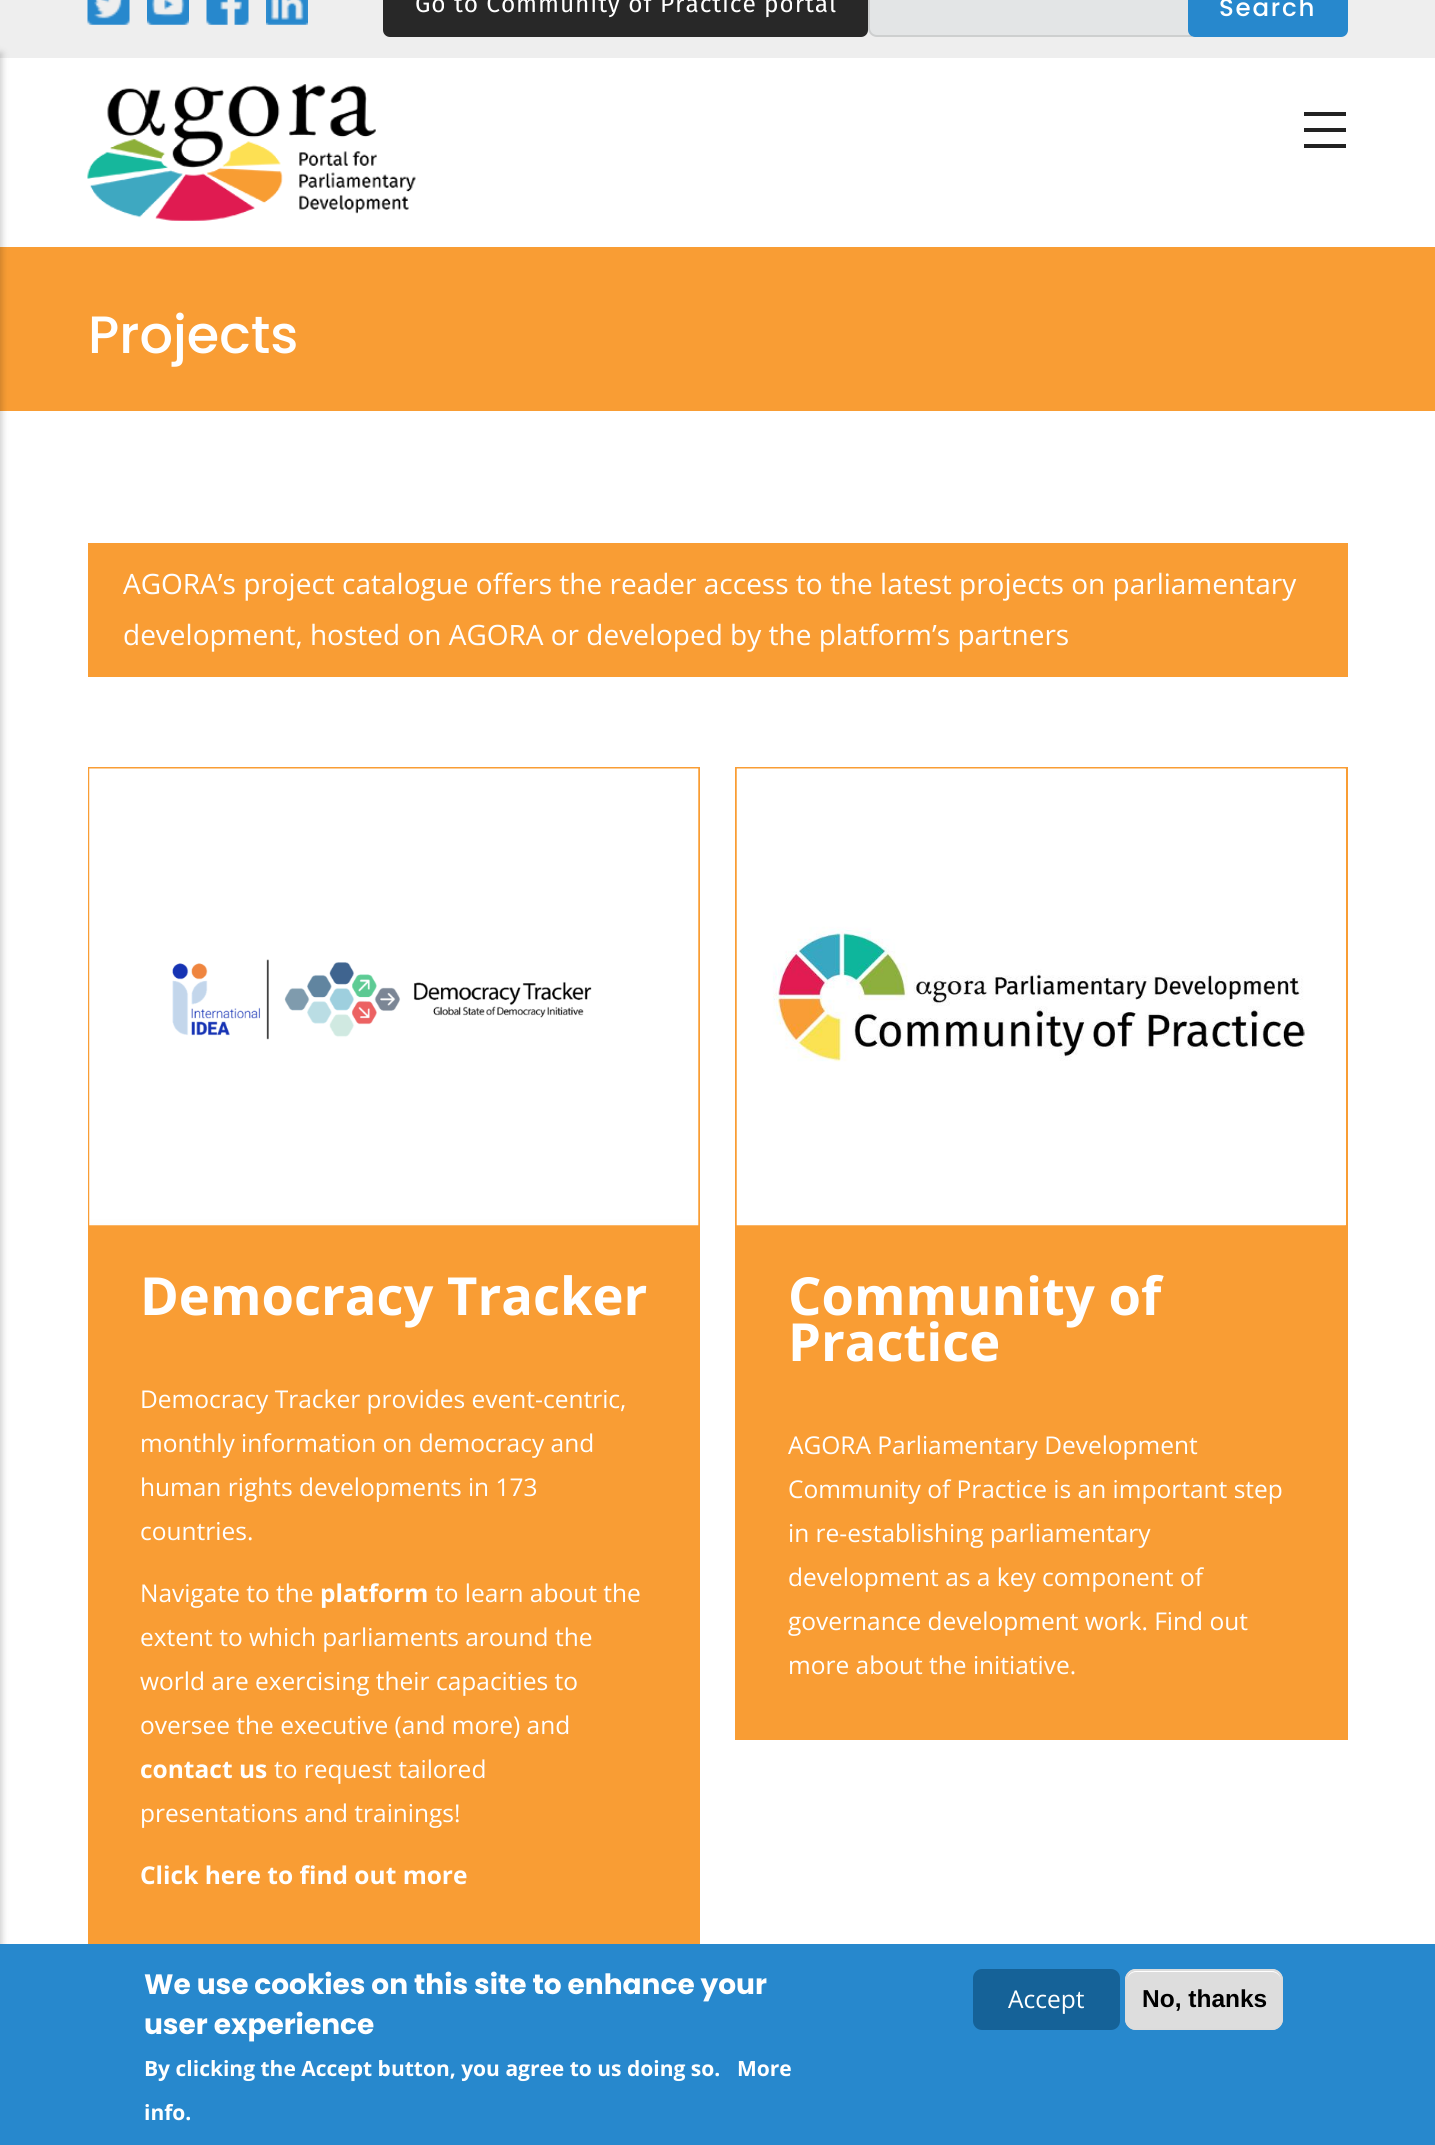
import math
import cairocffi as cairo

surface = cairo.ImageSurface(cairo.FORMAT_RGB24, 1435, 2145)
ctx = cairo.Context(surface)
options = cairo.FontOptions()
options.set_hint_metrics(cairo.HINT_METRICS_OFF)
options.set_hint_style(cairo.HINT_STYLE_NONE)
ctx.set_font_options(options)
ctx.set_miter_limit(4)


def rgb(r, g, b):
    ctx.set_source_rgb(r / 255, g / 255, b / 255)


def face(family, size, italic, bold):
    ctx.select_font_face(family, cairo.FONT_SLANT_ITALIC if italic else cairo.FONT_SLANT_NORMAL, cairo.FONT_WEIGHT_BOLD if bold else cairo.FONT_WEIGHT_NORMAL)
    ctx.set_font_size(size)


def label(x, y, s):
    ctx.move_to(x, y)
    ctx.show_text(s)


def tracked(x, y, s, letter, word):
    ctx.move_to(x, y)
    for ch in s:
        ctx.show_text(ch)
        ctx.rel_move_to(letter + word * (ch == ' '), 0)


def rect(x, y, w, h):
    ctx.rectangle(x, y, w, h)
    ctx.fill()


def rrect(x, y, w, h, r):
    ctx.new_sub_path()
    for i, (u, v) in enumerate([(x + w - r, y + h - r), (x + r, y + h - r), (x + r, y + r), (x + w - r, y + r)]):
        ctx.arc(u, v, r, i * math.pi / 2, (i + 1) * math.pi / 2)
    ctx.close_path()


def soft_shadow(x, y, w, h, r, blur, alpha):
    ctx.push_group_with_content(cairo.CONTENT_ALPHA)
    ctx.set_operator(cairo.OPERATOR_SOURCE)
    for i in range(15, -16, -2):
        e = blur * i / 6
        if min(w, h) + 2 * e > 0:
            ctx.set_source_rgba(0, 0, 0, alpha * math.erfc((i - 1) / 8.5) / 2)
            rrect(x - e, y - e, w + 2 * e, h + 2 * e, max(0, min(r + e + blur * .6, min(w, h) / 2 + e)))
            ctx.fill()
    ctx.mask(ctx.pop_group())


def image(path, x, y, w, h):
    ctx.save()
    ctx.set_source_surface(cairo.ImageSurface.create_from_png(path), x, y)
    ctx.rectangle(x, y, w, h)
    ctx.fill()
    ctx.restore()


rgb(255, 255, 255)
ctx.paint()
rgb(238, 238, 238)
rect(0, 0, 1435, 58)
image('image0.png', 87, 0, 43, 25)
image('image1.png', 147, 0, 42, 25)
image('image2.png', 206, 0, 43, 25)
image('image3.png', 266, 0, 42, 25)
rgb(40, 40, 40)
rrect(383, -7, 485, 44, 7)
ctx.fill()
face('Fira Sans', 24.5, 0, 0)
rgb(255, 255, 255)
tracked(415, 12, 'Go to Community of Practice portal', 0.9, 0)
rgb(227, 229, 230)
ctx.new_path()
ctx.move_to(877, -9)
ctx.line_to(1192, -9)
ctx.line_to(1192, 37)
ctx.line_to(877, 37)
ctx.curve_to(872, 37, 868, 33, 868, 28)
ctx.line_to(868, 0)
ctx.curve_to(868, -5, 872, -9, 877, -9)
ctx.close_path()
ctx.fill()
ctx.new_path()
ctx.move_to(877, -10)
ctx.line_to(1191, -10)
ctx.line_to(1191, 36)
ctx.line_to(877, 36)
ctx.curve_to(872.5, 36, 869, 32.5, 869, 28)
ctx.line_to(869, -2)
ctx.curve_to(869, -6.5, 872.5, -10, 877, -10)
ctx.close_path()
ctx.set_source_rgba(0, 0, 0, 0.1)
ctx.stroke()
rgb(39, 136, 205)
rrect(1188, -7, 160, 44, 7)
ctx.fill()
face('Poppins Medium', 24.5, 0, 0)
rgb(255, 255, 255)
tracked(1219, 16, 'Search', 1.75, 0)
rgb(249, 157, 52)
rect(0, 247, 1435, 164)
rgb(0, 0, 0)
soft_shadow(-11, 53, 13, 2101, 0, 3.5, 0.2)
rgb(34, 34, 34)
rect(1304, 112, 42, 4)
rect(1304, 128, 42, 4)
rect(1304, 144, 42, 4)
image('image4.png', 87, 84, 329, 137)
face('Poppins Medium', 52.5, 0, 0)
rgb(255, 255, 255)
label(88, 353, 'Projects')
rgb(249, 157, 52)
rect(88, 543, 1260, 134)
face('Open Sans', 28, 0, 0)
rgb(255, 255, 255)
label(123, 594, 'AGORA’s project catalogue offers the reader access to the latest projects on parliamentary')
label(123, 645, 'development, hosted on AGORA or developed by the platform’s partners')
ctx.rectangle(89, 768, 610, 458)
rgb(249, 157, 52)
ctx.stroke()
image('image5.png', 89, 768, 610, 458)
rect(88, 1227, 612, 717)
face('Open Sans', 52.5, 0, 1)
rgb(255, 255, 255)
label(140, 1315, 'Democracy Tracker')
face('Open Sans', 24.5, 0, 0)
label(140, 1408, 'Democracy Tracker provides event-centric,')
label(140, 1452, 'monthly information on democracy and')
label(140, 1496, 'human rights developments in 173')
label(140, 1540, 'countries.')
label(140, 1602, 'Navigate to the')
face('Open Sans', 24.5, 0, 1)
label(320, 1602, 'platform')
face('Open Sans', 24.5, 0, 0)
label(435, 1602, 'to learn about the')
label(140, 1646, 'extent to which parliaments around the')
label(140, 1690, 'world are exercising their capacities to')
label(140, 1734, 'oversee the executive (and more) and')
face('Open Sans', 24.5, 0, 1)
label(140, 1778, 'contact us')
face('Open Sans', 24.5, 0, 0)
label(274, 1778, 'to request tailored')
label(140, 1822, 'presentations and trainings!')
face('Open Sans', 24.5, 0, 1)
label(140, 1884, 'Click here to find out more')
ctx.rectangle(736, 768, 611, 458)
rgb(249, 157, 52)
ctx.stroke()
image('image6.png', 736, 768, 610, 458)
rect(735, 1227, 613, 513)
face('Open Sans', 52.5, 0, 1)
rgb(255, 255, 255)
label(788, 1315, 'Community of')
label(788, 1361, 'Practice')
face('Open Sans', 24.5, 0, 0)
label(788, 1454, 'AGORA Parliamentary Development')
label(788, 1498, 'Community of Practice is an important step')
label(788, 1542, 'in re-establishing parliamentary')
label(788, 1586, 'development as a key component of')
label(788, 1630, 'governance development work. Find out')
label(788, 1674, 'more about the initiative.')
rgb(39, 136, 205)
rect(0, 1944, 1435, 201)
face('Poppins', 28, 0, 1)
rgb(255, 255, 255)
label(144, 1994, 'We use cookies on this site to enhance your')
label(144, 2034, 'user experience')
face('Open Sans', 21, 0, 1)
label(144, 2076, 'By clicking the Accept button, you agree to us doing so.')
label(737, 2076, 'More')
label(144, 2120, 'info.')
rgb(21, 98, 152)
rrect(973, 1969, 147, 61, 9)
ctx.fill()
face('Open Sans', 24.5, 0, 0)
rgb(255, 255, 255)
label(1008, 2008, 'Accept')
rgb(221, 221, 221)
rrect(1125, 1969, 158, 61, 11)
ctx.fill()
rgb(255, 255, 255)
ctx.new_path()
ctx.move_to(1136, 1972)
ctx.line_to(1272, 1972)
ctx.curve_to(1277, 1972, 1281, 1976, 1281, 1981)
ctx.curve_to(1281, 1965, 1258, 1971, 1249, 1971)
ctx.line_to(1159, 1971)
ctx.curve_to(1150, 1971, 1127, 1965, 1127, 1981)
ctx.curve_to(1127, 1976, 1131, 1972, 1136, 1972)
ctx.close_path()
ctx.fill()
rrect(1126, 1970, 156, 59, 10)
rgb(220, 220, 220)
ctx.stroke()
face('Liberation Sans', 24.5, 0, 1)
rgb(0, 0, 0)
label(1142, 2007, 'No, thanks')
surface.write_to_png('render.png')
